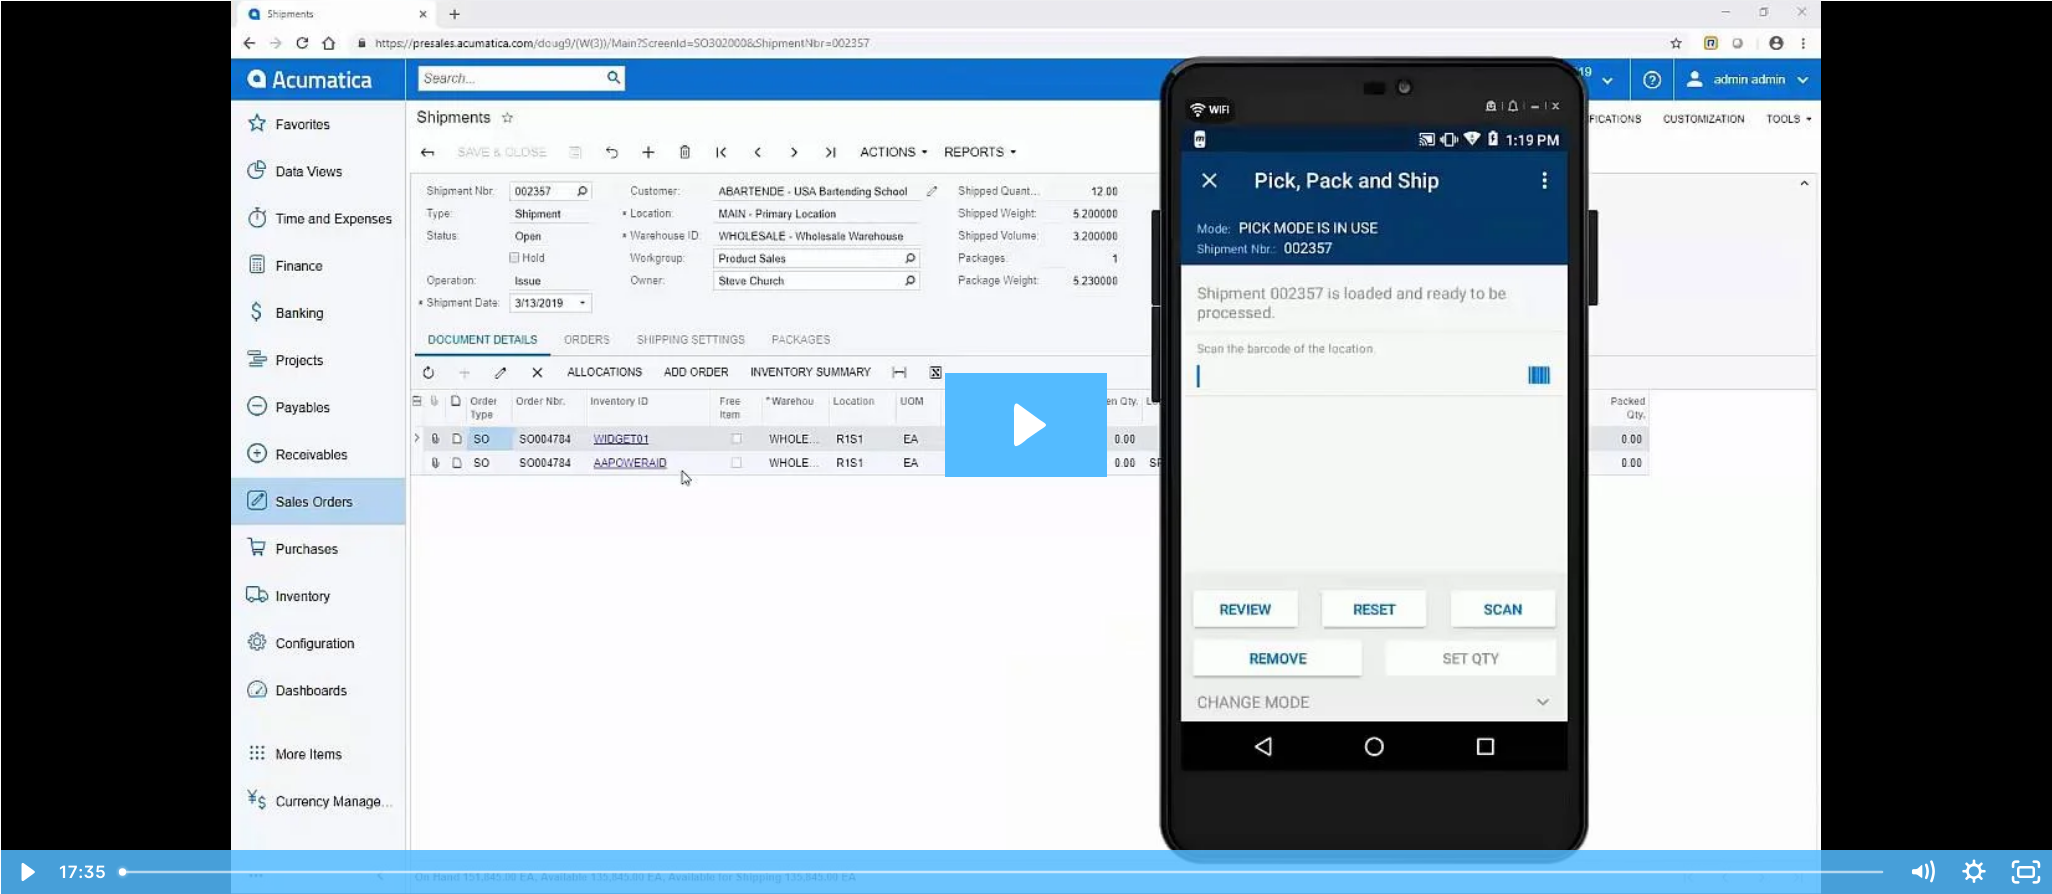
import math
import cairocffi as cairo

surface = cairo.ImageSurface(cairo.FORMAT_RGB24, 2052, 894)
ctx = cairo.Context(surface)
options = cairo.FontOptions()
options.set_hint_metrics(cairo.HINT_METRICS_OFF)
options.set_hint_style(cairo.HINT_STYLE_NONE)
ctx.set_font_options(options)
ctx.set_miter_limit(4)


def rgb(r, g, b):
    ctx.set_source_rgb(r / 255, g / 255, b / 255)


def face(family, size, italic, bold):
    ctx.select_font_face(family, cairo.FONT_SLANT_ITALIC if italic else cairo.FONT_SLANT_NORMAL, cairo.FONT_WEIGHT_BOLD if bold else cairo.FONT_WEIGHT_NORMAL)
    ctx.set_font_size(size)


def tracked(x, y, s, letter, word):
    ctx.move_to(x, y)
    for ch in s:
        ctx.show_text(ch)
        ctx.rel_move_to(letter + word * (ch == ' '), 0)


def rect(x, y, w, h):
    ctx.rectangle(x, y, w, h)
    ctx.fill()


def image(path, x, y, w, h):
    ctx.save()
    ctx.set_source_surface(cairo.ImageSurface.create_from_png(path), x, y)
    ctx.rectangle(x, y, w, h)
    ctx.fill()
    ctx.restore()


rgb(255, 255, 255)
ctx.paint()
image('image0.png', 220, 0, 1612, 1)
rgb(0, 0, 0)
rect(1, 1, 2051, 893)
image('image2.png', 222, 0, 1608, 1)
image('image1.png', 231, 0, 1590, 894)
rgb(84, 187, 255)
rect(945, 373, 162, 104)
rgb(255, 255, 255)
ctx.set_fill_rule(cairo.FILL_RULE_EVEN_ODD)
ctx.new_path()
ctx.move_to(1018, 404)
ctx.curve_to(1013, 401, 1014, 412, 1014, 413)
ctx.line_to(1014, 444)
ctx.line_to(1015, 446)
ctx.curve_to(1018, 447, 1025, 441, 1027, 439)
ctx.line_to(1040, 430)
ctx.curve_to(1048, 425, 1048, 425, 1040, 420)
ctx.close_path()
ctx.fill()
ctx.set_source_rgba(0.329, 0.733, 1, 0.85)
rect(1, 850, 2051, 44)
image('image3.png', 21, 862, 14, 20)
face('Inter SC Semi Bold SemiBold', 17, 0, 0)
rgb(255, 255, 255)
tracked(59, 878, '17:35', 0.5, 0)
image('image4.png', 116, 865, 1768, 14)
image('image5.png', 1911, 860, 24, 23)
image('image6.png', 1962, 859, 24, 24)
image('image7.png', 2011, 860, 30, 24)
surface.write_to_png('render.png')
